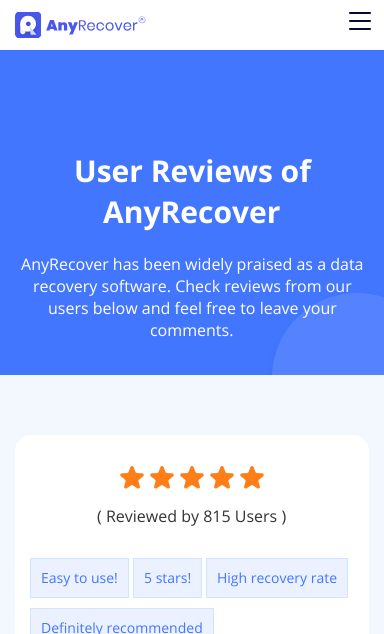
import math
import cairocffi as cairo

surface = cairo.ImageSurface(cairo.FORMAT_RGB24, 384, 634)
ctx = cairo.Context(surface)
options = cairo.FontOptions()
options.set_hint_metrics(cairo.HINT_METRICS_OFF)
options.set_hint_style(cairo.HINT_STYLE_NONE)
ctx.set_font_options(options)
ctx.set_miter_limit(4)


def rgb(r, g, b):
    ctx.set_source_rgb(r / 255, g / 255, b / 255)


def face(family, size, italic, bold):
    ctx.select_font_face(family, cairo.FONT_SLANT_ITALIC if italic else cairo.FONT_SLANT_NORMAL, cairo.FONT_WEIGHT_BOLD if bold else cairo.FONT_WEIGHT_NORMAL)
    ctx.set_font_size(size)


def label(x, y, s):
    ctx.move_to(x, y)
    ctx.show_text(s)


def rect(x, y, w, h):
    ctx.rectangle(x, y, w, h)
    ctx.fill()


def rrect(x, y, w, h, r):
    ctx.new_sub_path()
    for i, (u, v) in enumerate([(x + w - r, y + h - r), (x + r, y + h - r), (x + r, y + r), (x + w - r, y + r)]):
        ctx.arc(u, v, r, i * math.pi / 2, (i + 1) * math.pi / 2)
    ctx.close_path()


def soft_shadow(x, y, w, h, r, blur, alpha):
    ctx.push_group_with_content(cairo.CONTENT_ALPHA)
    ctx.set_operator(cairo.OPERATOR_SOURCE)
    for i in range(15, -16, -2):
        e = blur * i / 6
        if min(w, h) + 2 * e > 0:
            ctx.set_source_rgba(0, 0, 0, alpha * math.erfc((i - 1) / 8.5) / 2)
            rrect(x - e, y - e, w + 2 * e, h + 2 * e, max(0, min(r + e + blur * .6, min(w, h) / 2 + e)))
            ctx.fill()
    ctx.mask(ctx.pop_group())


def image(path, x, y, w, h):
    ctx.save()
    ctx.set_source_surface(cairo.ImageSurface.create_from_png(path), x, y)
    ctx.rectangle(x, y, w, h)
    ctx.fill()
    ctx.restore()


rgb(255, 255, 255)
ctx.paint()
image('image0.png', 15, 12, 131, 26)
rgb(8, 11, 41)
rrect(349, 12, 22, 2, 1)
ctx.fill()
rrect(349, 20, 22, 2, 1)
ctx.fill()
rrect(349, 28, 22, 2, 1)
ctx.fill()
rgb(66, 118, 255)
rect(0, 50, 384, 325)
face('Open Sans', 30, 0, 1)
rgb(255, 255, 255)
label(74, 182, 'User Reviews of')
label(103, 223, 'AnyRecover')
face('Open Sans', 16, 0, 0)
label(21, 270, 'AnyRecover has been widely praised as a data')
label(33, 292, 'recovery software. Check reviews from our')
label(48, 314, 'users below and feel free to leave your')
label(150, 336, 'comments.')
rgb(243, 248, 255)
rect(0, 375, 384, 259)
ctx.save()
ctx.rectangle(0, 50, 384, 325)
ctx.clip()
ctx.set_fill_rule(cairo.FILL_RULE_EVEN_ODD)
ctx.new_path()
ctx.move_to(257, 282)
ctx.line_to(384, 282)
ctx.line_to(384, 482)
ctx.line_to(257, 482)
ctx.close_path()
ctx.move_to(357, 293)
ctx.curve_to(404, 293, 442, 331, 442, 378)
ctx.curve_to(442, 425, 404, 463, 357, 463)
ctx.curve_to(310, 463, 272, 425, 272, 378)
ctx.curve_to(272, 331, 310, 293, 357, 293)
ctx.close_path()
ctx.clip()
rgb(58, 101, 216)
soft_shadow(272, 297, 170, 170, 85, 4.5, 0.4)
ctx.restore()
ctx.save()
ctx.rectangle(0, 50, 384, 325)
ctx.clip()
ctx.set_source_rgba(1, 1, 1, 0.1)
ctx.arc(357, 378, 85, 0, 2 * math.pi)
ctx.fill()
ctx.restore()
rgb(255, 255, 255)
rrect(15, 435, 354, 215, 16)
ctx.fill()
image('image1.png', 120, 466, 24, 23)
image('image1.png', 150, 466, 24, 23)
image('image1.png', 180, 466, 24, 23)
image('image1.png', 210, 466, 24, 23)
image('image1.png', 240, 466, 24, 23)
rgb(51, 51, 51)
label(97, 522, '( Reviewed by 815 Users )')
rgb(236, 241, 255)
ctx.rectangle(30.5, 558.5, 98, 39)
ctx.fill_preserve()
rgb(210, 229, 254)
ctx.set_line_width(1)
ctx.stroke()
face('Open Sans', 14, 0, 0)
rgb(66, 118, 255)
label(41, 583, 'Easy to use!')
rgb(236, 241, 255)
ctx.rectangle(133.5, 558.5, 68, 39)
ctx.fill_preserve()
rgb(210, 229, 254)
ctx.stroke()
rgb(66, 118, 255)
label(144, 583, '5 stars!')
rgb(236, 241, 255)
ctx.rectangle(206.5, 558.5, 141, 39)
ctx.fill_preserve()
rgb(210, 229, 254)
ctx.stroke()
rgb(66, 118, 255)
label(217, 583, 'High recovery rate')
rgb(236, 241, 255)
ctx.rectangle(30.5, 608.5, 183, 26)
ctx.fill_preserve()
rgb(210, 229, 254)
ctx.stroke()
rgb(66, 118, 255)
label(41, 633, 'Definitely recommended')
surface.write_to_png('render.png')
